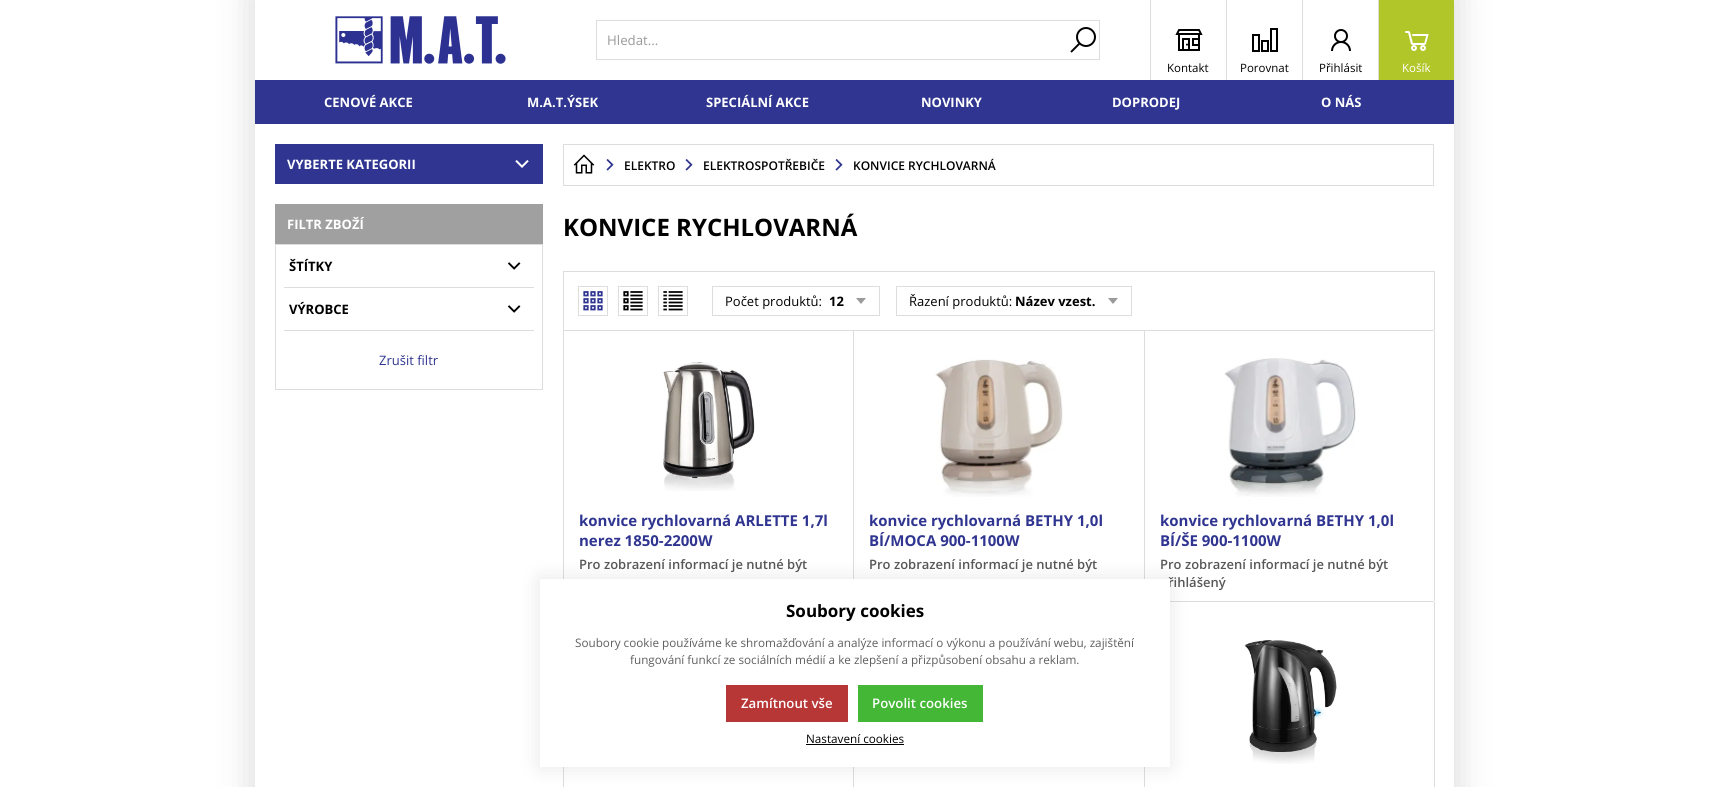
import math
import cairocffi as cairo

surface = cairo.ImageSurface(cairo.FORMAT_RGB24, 1709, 787)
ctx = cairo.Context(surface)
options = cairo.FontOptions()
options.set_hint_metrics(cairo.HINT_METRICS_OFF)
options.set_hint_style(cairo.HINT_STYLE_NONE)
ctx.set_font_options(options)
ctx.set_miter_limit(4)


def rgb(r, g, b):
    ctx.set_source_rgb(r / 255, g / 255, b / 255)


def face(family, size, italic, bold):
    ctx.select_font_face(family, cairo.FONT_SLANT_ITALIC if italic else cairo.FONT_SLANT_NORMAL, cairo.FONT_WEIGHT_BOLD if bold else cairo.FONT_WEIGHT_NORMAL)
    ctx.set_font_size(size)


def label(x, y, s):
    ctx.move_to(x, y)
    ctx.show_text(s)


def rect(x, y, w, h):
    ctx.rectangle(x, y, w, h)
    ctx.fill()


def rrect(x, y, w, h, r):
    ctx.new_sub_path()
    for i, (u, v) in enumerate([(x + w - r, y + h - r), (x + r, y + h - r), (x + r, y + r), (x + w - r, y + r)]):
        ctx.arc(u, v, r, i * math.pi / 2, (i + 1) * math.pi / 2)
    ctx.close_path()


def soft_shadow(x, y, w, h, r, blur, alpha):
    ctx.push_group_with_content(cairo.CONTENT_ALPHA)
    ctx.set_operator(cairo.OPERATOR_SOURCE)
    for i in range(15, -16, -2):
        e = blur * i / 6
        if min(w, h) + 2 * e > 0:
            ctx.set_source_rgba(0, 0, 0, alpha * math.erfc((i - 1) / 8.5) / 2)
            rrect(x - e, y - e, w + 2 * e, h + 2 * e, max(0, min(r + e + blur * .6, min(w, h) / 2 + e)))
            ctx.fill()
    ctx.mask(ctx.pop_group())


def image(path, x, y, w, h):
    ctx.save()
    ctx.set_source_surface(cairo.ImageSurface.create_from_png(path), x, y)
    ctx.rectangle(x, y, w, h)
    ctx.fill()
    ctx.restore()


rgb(255, 255, 255)
ctx.paint()
ctx.save()
ctx.set_fill_rule(cairo.FILL_RULE_EVEN_ODD)
ctx.new_path()
ctx.move_to(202, 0)
ctx.line_to(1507, 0)
ctx.line_to(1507, 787)
ctx.line_to(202, 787)
ctx.close_path()
ctx.move_to(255, 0)
ctx.line_to(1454, 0)
ctx.line_to(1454, 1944)
ctx.line_to(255, 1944)
ctx.close_path()
ctx.clip()
rgb(221, 221, 221)
soft_shadow(251, -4, 1207, 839, 0, 16, 1)
ctx.restore()
image('image0.png', 335, 16, 171, 48)
ctx.rectangle(596.5, 20.5, 503, 39)
rgb(221, 221, 221)
ctx.set_line_width(1)
ctx.stroke()
face('Open Sans', 13.25, 0, 0)
rgb(154, 154, 154)
label(607, 45, 'Hledat...')
image('image1.png', 1070, 27, 26, 26)
rgb(221, 221, 221)
rect(1150, 0, 1, 80)
image('image2.png', 1175, 29, 28, 22)
face('Open Sans', 11.5, 0, 0)
rgb(0, 0, 0)
label(1167, 72, 'Kontakt')
rgb(221, 221, 221)
rect(1226, 0, 1, 80)
image('image3.png', 1252, 28, 26, 24)
rgb(0, 0, 0)
label(1240, 72, 'Porovnat')
rgb(221, 221, 221)
rect(1302, 0, 1, 80)
image('image4.png', 1331, 29, 20, 22)
rgb(0, 0, 0)
label(1319, 72, 'Přihlásit')
rgb(177, 199, 41)
rect(1379, 0, 75, 80)
rgb(221, 221, 221)
rect(1378, 0, 1, 80)
image('image5.png', 1405, 31, 24, 20)
rgb(255, 255, 255)
label(1402, 72, 'Košík')
rgb(47, 53, 144)
rect(255, 80, 1199, 44)
face('Open Sans', 13, 0, 1)
rgb(255, 255, 255)
label(324, 107, 'CENOVÉ AKCE')
label(527, 107, 'M.A.T.ÝSEK')
label(706, 107, 'SPECIÁLNÍ AKCE')
label(921, 107, 'NOVINKY')
label(1112, 107, 'DOPRODEJ')
label(1321, 107, 'O NÁS')
rgb(47, 53, 144)
rect(275, 144, 268, 40)
rgb(255, 255, 255)
label(287, 169, 'VYBERTE KATEGORII')
image('image6.png', 515, 160, 14, 8)
rgb(160, 160, 160)
rect(275, 204, 268, 40)
rgb(255, 255, 255)
label(287, 229, 'FILTR ZBOŽÍ')
ctx.rectangle(275.5, 244.5, 267, 145)
rgb(221, 221, 221)
ctx.stroke()
rect(284, 287, 250, 1)
rgb(0, 0, 0)
label(289, 271, 'ŠTÍTKY')
image('image7.png', 507, 262, 14, 8)
rgb(221, 221, 221)
rect(284, 330, 250, 1)
rgb(0, 0, 0)
label(289, 314, 'VÝROBCE')
image('image7.png', 507, 305, 14, 8)
face('Open Sans', 13, 0, 0)
rgb(47, 53, 144)
label(379, 365, 'Zrušit filtr')
ctx.rectangle(563.5, 144.5, 870, 41)
rgb(221, 221, 221)
ctx.stroke()
image('image8.png', 573, 154, 22, 20)
image('image9.png', 606, 159, 8, 12)
face('Open Sans SemiBold', 12, 0, 0)
rgb(0, 0, 0)
label(624, 170, 'ELEKTRO')
image('image9.png', 685, 159, 8, 12)
label(703, 170, 'ELEKTROSPOTŘEBIČE')
image('image9.png', 835, 159, 8, 12)
label(853, 170, 'KONVICE RYCHLOVARNÁ')
face('Open Sans', 24, 0, 1)
label(563, 236, 'KONVICE RYCHLOVARNÁ')
rgb(221, 221, 221)
rect(563, 271, 872, 1)
rect(1434, 271, 1, 59)
rect(563, 271, 1, 59)
ctx.rectangle(578.5, 286.5, 29, 29)
ctx.stroke()
image('image10.png', 583, 291, 20, 20)
ctx.rectangle(618.5, 286.5, 29, 29)
ctx.stroke()
image('image11.png', 623, 291, 20, 20)
ctx.rectangle(658.5, 286.5, 29, 29)
ctx.stroke()
image('image12.png', 663, 291, 20, 20)
rgb(154, 154, 154)
ctx.new_path()
ctx.move_to(861, 304)
ctx.line_to(856, 298)
ctx.line_to(866, 298)
ctx.close_path()
ctx.fill()
ctx.rectangle(712.5, 286.5, 167, 29)
rgb(221, 221, 221)
ctx.stroke()
face('Open Sans', 13, 0, 0)
rgb(0, 0, 0)
label(725, 306, 'Počet produktů:')
face('Open Sans', 13, 0, 1)
label(829, 306, '12')
rgb(154, 154, 154)
ctx.new_path()
ctx.move_to(1113, 304)
ctx.line_to(1108, 298)
ctx.line_to(1118, 298)
ctx.close_path()
ctx.fill()
ctx.rectangle(896.5, 286.5, 235, 29)
rgb(221, 221, 221)
ctx.stroke()
face('Open Sans', 13, 0, 0)
rgb(0, 0, 0)
label(909, 306, 'Řazení produktů:')
face('Open Sans', 13, 0, 1)
label(1015, 306, 'Název vzest.')
rgb(221, 221, 221)
rect(563, 330, 871, 1)
rect(853, 331, 1, 248)
rect(563, 331, 1, 248)
image('image13.png', 663, 362, 92, 129)
face('Open Sans', 15, 0, 1)
rgb(47, 53, 144)
label(579, 526, 'konvice rychlovarná ARLETTE 1,7l')
label(579, 546, 'nerez 1850-2200W')
face('Open Sans SemiBold', 13, 0, 0)
rgb(88, 88, 88)
label(579, 569, 'Pro zobrazení informací je nutné být')
image('image14.png', 935, 359, 128, 138)
rgb(221, 221, 221)
rect(1144, 331, 1, 248)
face('Open Sans', 15, 0, 1)
rgb(47, 53, 144)
label(869, 526, 'konvice rychlovarná BETHY 1,0l')
label(869, 546, 'BÍ/MOCA 900-1100W')
face('Open Sans SemiBold', 13, 0, 0)
rgb(88, 88, 88)
label(869, 569, 'Pro zobrazení informací je nutné být')
rgb(221, 221, 221)
rect(1170, 601, 264, 1)
image('image15.png', 1224, 358, 132, 139)
rect(1434, 331, 1, 270)
face('Open Sans', 15, 0, 1)
rgb(47, 53, 144)
label(1160, 526, 'konvice rychlovarná BETHY 1,0l')
label(1160, 546, 'BÍ/ŠE 900-1100W')
face('Open Sans SemiBold', 13, 0, 0)
rgb(88, 88, 88)
label(1160, 569, 'Pro zobrazení informací je nutné být')
label(1168, 587, 'řihlášený')
rgb(221, 221, 221)
rect(853, 767, 1, 20)
rect(563, 767, 1, 20)
rect(1144, 767, 1, 20)
image('image16.png', 1244, 640, 93, 124)
rect(1434, 602, 1, 185)
rgb(0, 0, 0)
soft_shadow(540, 579, 630, 188, 0, 10, 0.1)
rgb(255, 255, 255)
rect(540, 579, 630, 188)
face('Open Sans', 17, 0, 1)
rgb(0, 0, 0)
label(786, 617, 'Soubory cookies')
face('Open Sans', 11.7, 0, 0)
rgb(94, 94, 94)
label(575, 647, 'Soubory cookie používáme ke shromažďování a analýze informací o výkonu a používání webu, zajištění')
label(630, 664, 'fungování funkcí ze sociálních médií a ke zlepšení a přizpůsobení obsahu a reklam.')
rgb(183, 54, 54)
rect(726, 685, 122, 37)
face('Open Sans SemiBold', 13.25, 0, 0)
rgb(255, 255, 255)
label(741, 708, 'Zamítnout vše')
rgb(68, 183, 54)
rect(858, 685, 125, 37)
rgb(255, 255, 255)
label(872, 708, 'Povolit cookies')
face('Open Sans', 11.7, 0, 0)
rgb(0, 0, 0)
label(806, 743, 'Nastavení cookies')
rect(806, 744, 98, 1)
surface.write_to_png('render.png')
